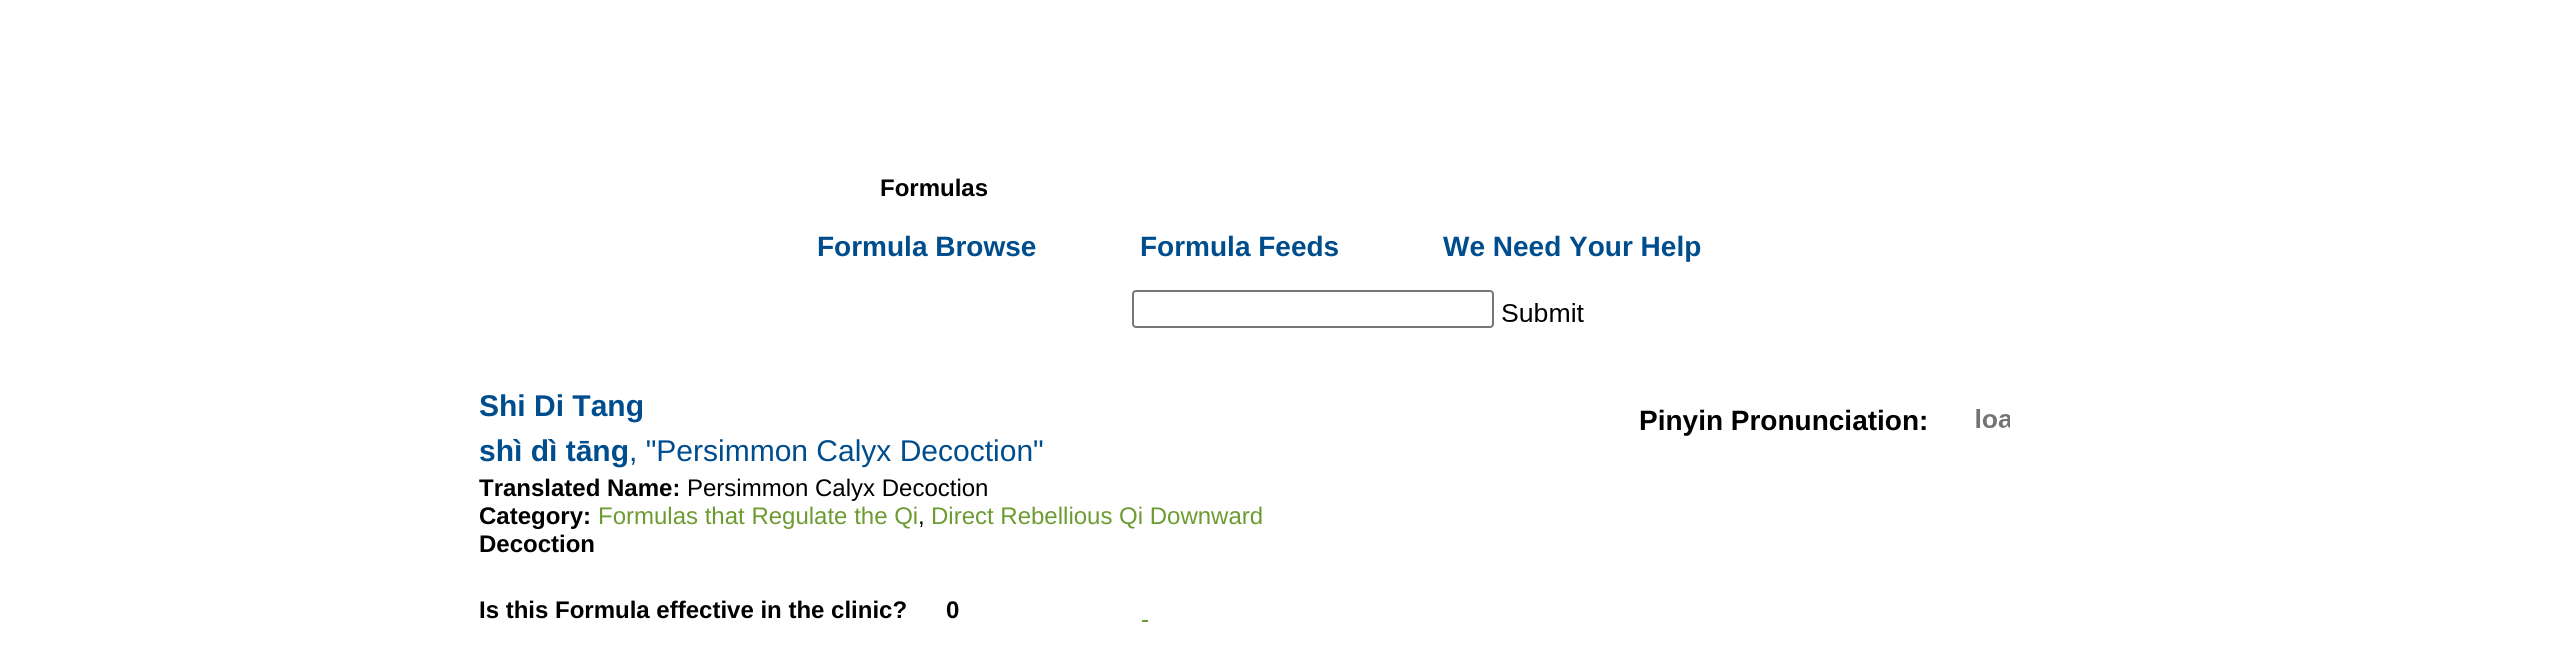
import math
import cairocffi as cairo

surface = cairo.ImageSurface(cairo.FORMAT_RGB24, 2558, 667)
ctx = cairo.Context(surface)
options = cairo.FontOptions()
options.set_hint_metrics(cairo.HINT_METRICS_OFF)
options.set_hint_style(cairo.HINT_STYLE_NONE)
ctx.set_font_options(options)
ctx.set_miter_limit(4)


def rgb(r, g, b):
    ctx.set_source_rgb(r / 255, g / 255, b / 255)


def face(family, size, italic, bold):
    ctx.select_font_face(family, cairo.FONT_SLANT_ITALIC if italic else cairo.FONT_SLANT_NORMAL, cairo.FONT_WEIGHT_BOLD if bold else cairo.FONT_WEIGHT_NORMAL)
    ctx.set_font_size(size)


def label(x, y, s):
    ctx.move_to(x, y)
    ctx.show_text(s)


def rect(x, y, w, h):
    ctx.rectangle(x, y, w, h)
    ctx.fill()


def rrect(x, y, w, h, r):
    ctx.new_sub_path()
    for i, (u, v) in enumerate([(x + w - r, y + h - r), (x + r, y + h - r), (x + r, y + r), (x + w - r, y + r)]):
        ctx.arc(u, v, r, i * math.pi / 2, (i + 1) * math.pi / 2)
    ctx.close_path()


def image(path, x, y, w, h):
    ctx.save()
    ctx.set_source_surface(cairo.ImageSurface.create_from_png(path), x, y)
    ctx.rectangle(x, y, w, h)
    ctx.fill()
    ctx.restore()


rgb(255, 255, 255)
ctx.paint()
face('Liberation Sans', 24, 0, 1)
rgb(0, 0, 0)
label(880, 196, 'Formulas')
face('Liberation Sans', 28, 0, 1)
rgb(0, 77, 141)
label(817, 256, 'Formula Browse')
label(1140, 256, 'Formula Feeds')
label(1443, 256, 'We Need Your Help')
rrect(1133, 291, 360, 36, 3)
rgb(118, 118, 118)
ctx.stroke()
image('image0.png', 1502, 303, 82, 19)
face('Liberation Sans', 30, 0, 1)
rgb(0, 77, 141)
label(479, 416, 'Shi Di Tang')
label(479, 461, 'shì dì tāng')
face('Liberation Sans', 30, 0, 0)
label(629, 461, ', "Persimmon Calyx Decoction"')
face('Liberation Sans', 24, 0, 1)
rgb(0, 0, 0)
label(479, 496, 'Translated Name:')
face('Liberation Sans', 24, 0, 0)
label(687, 496, 'Persimmon Calyx Decoction')
face('Liberation Sans', 24, 0, 1)
label(479, 524, 'Category:')
face('Liberation Sans', 24, 0, 0)
rgb(108, 156, 49)
label(598, 524, 'Formulas that Regulate the Qi')
rgb(0, 0, 0)
label(918, 524, ',')
rgb(108, 156, 49)
label(931, 524, 'Direct Rebellious Qi Downward')
face('Liberation Sans', 24, 0, 1)
rgb(0, 0, 0)
label(479, 552, 'Decoction')
label(479, 618, 'Is this Formula effective in the clinic?')
label(946, 618, '0')
rgb(108, 156, 49)
rect(1142, 620, 6, 2)
face('Liberation Sans', 28, 0, 1)
rgb(0, 0, 0)
label(1639, 430, 'Pinyin Pronunciation:')
image('image1.png', 1976, 409, 34, 19)
surface.write_to_png('render.png')
